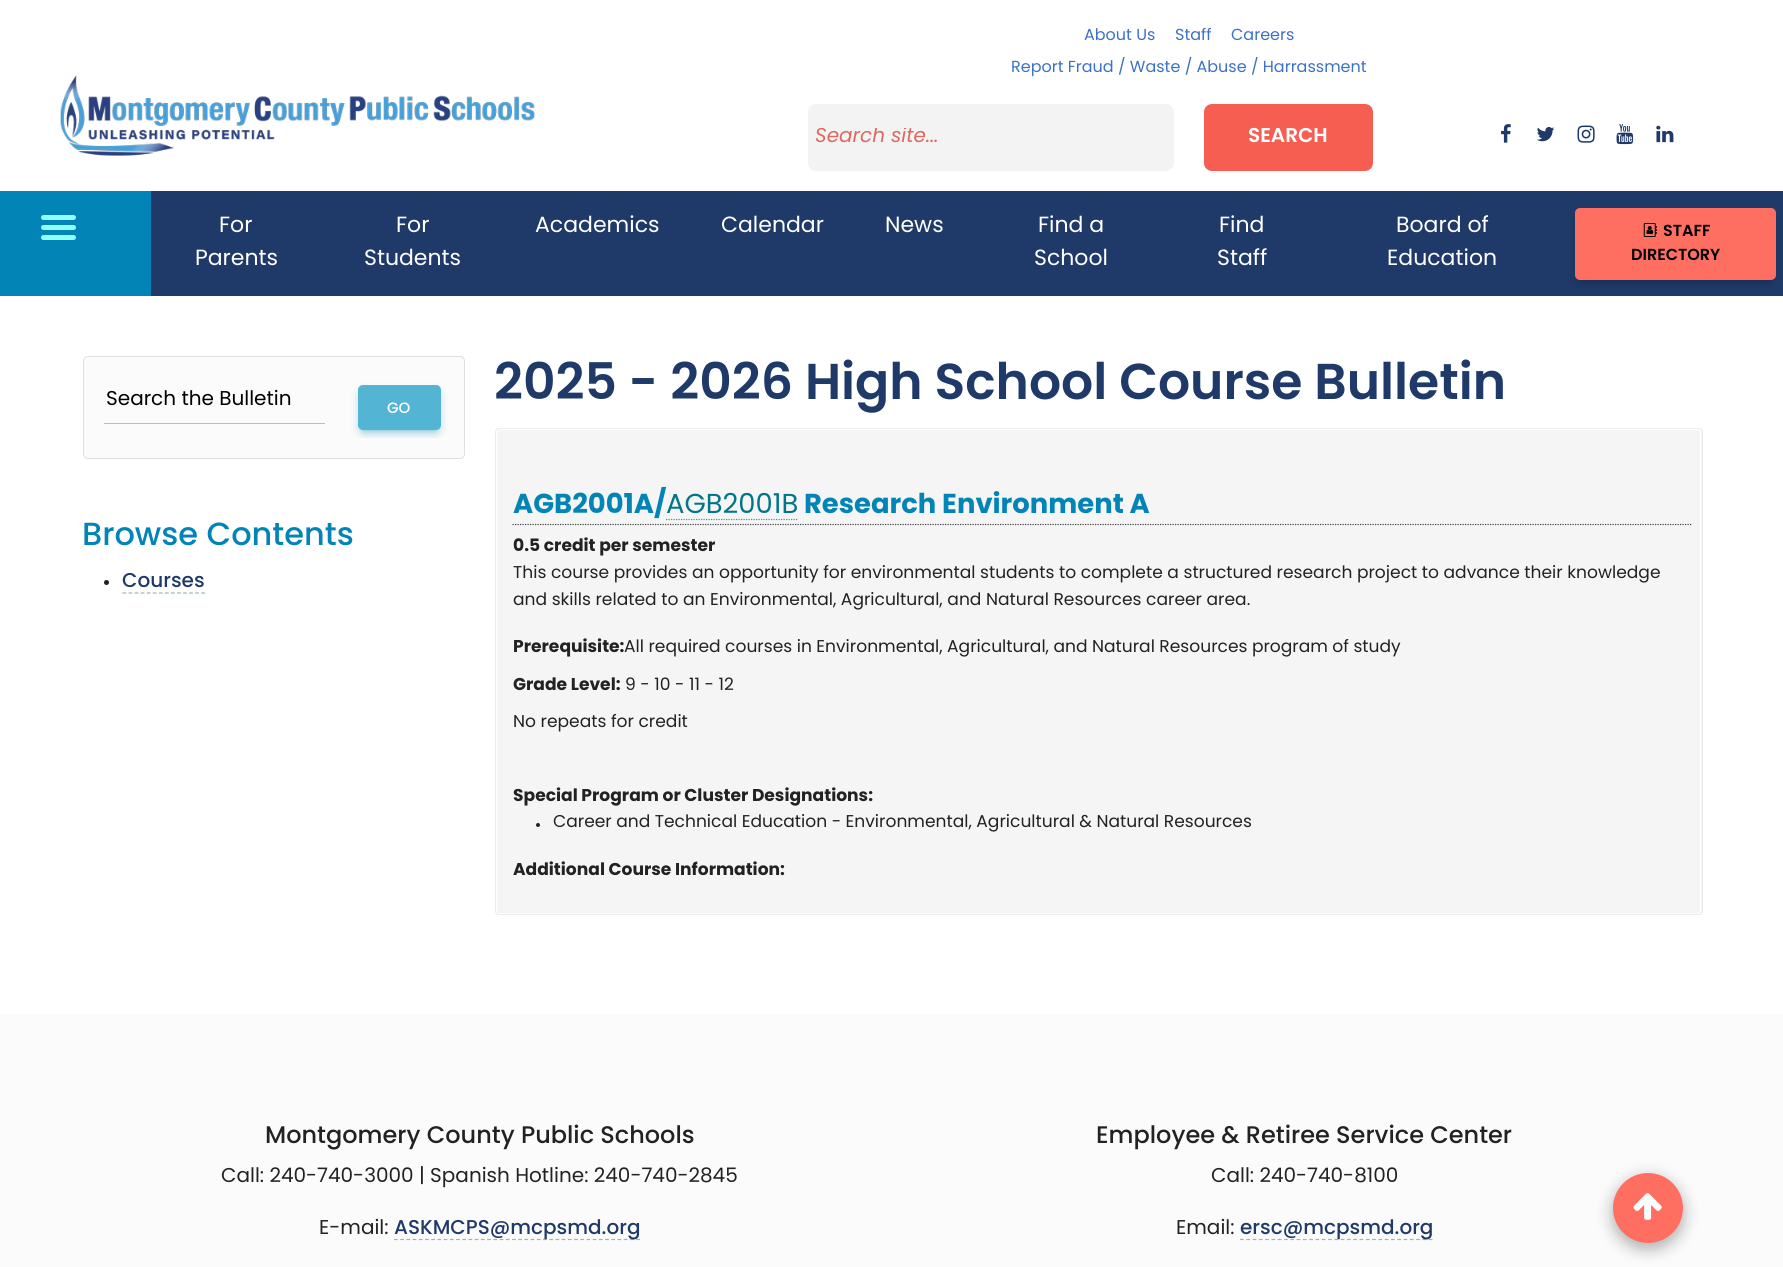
import math
import cairocffi as cairo

surface = cairo.ImageSurface(cairo.FORMAT_RGB24, 1783, 1267)
ctx = cairo.Context(surface)
options = cairo.FontOptions()
options.set_hint_metrics(cairo.HINT_METRICS_OFF)
options.set_hint_style(cairo.HINT_STYLE_NONE)
ctx.set_font_options(options)
ctx.set_miter_limit(4)


def rgb(r, g, b):
    ctx.set_source_rgb(r / 255, g / 255, b / 255)


def face(family, size, italic, bold):
    ctx.select_font_face(family, cairo.FONT_SLANT_ITALIC if italic else cairo.FONT_SLANT_NORMAL, cairo.FONT_WEIGHT_BOLD if bold else cairo.FONT_WEIGHT_NORMAL)
    ctx.set_font_size(size)


def label(x, y, s):
    ctx.move_to(x, y)
    ctx.show_text(s)


def tracked(x, y, s, letter, word):
    ctx.move_to(x, y)
    for ch in s:
        ctx.show_text(ch)
        ctx.rel_move_to(letter + word * (ch == ' '), 0)


def rect(x, y, w, h):
    ctx.rectangle(x, y, w, h)
    ctx.fill()


def rrect(x, y, w, h, r):
    ctx.new_sub_path()
    for i, (u, v) in enumerate([(x + w - r, y + h - r), (x + r, y + h - r), (x + r, y + r), (x + w - r, y + r)]):
        ctx.arc(u, v, r, i * math.pi / 2, (i + 1) * math.pi / 2)
    ctx.close_path()


def soft_shadow(x, y, w, h, r, blur, alpha):
    ctx.push_group_with_content(cairo.CONTENT_ALPHA)
    ctx.set_operator(cairo.OPERATOR_SOURCE)
    for i in range(15, -16, -2):
        e = blur * i / 6
        if min(w, h) + 2 * e > 0:
            ctx.set_source_rgba(0, 0, 0, alpha * math.erfc((i - 1) / 8.5) / 2)
            rrect(x - e, y - e, w + 2 * e, h + 2 * e, max(0, min(r + e + blur * .6, min(w, h) / 2 + e)))
            ctx.fill()
    ctx.mask(ctx.pop_group())


def image(path, x, y, w, h):
    ctx.save()
    ctx.set_source_surface(cairo.ImageSurface.create_from_png(path), x, y)
    ctx.rectangle(x, y, w, h)
    ctx.fill()
    ctx.restore()


rgb(255, 255, 255)
ctx.paint()
image('image0.png', 60, 75, 475, 81)
face('Poppins', 16, 0, 0)
rgb(59, 113, 202)
label(1084, 40, 'About Us')
label(1175, 40, 'Staff')
label(1231, 40, 'Careers')
label(1011, 72, 'Report Fraud / Waste / Abuse / Harrassment')
rgb(243, 243, 243)
rrect(808, 104, 366, 67, 8)
ctx.fill()
ctx.save()
ctx.rectangle(815, 128, 346, 20)
ctx.clip()
face('Poppins', 20, 1, 0)
rgb(222, 104, 96)
label(815, 142, 'Search site...')
ctx.restore()
rgb(245, 94, 80)
rrect(1204, 104, 169, 67, 8)
ctx.fill()
face('Poppins SemiBold', 20, 0, 0)
rgb(255, 255, 255)
label(1248, 142, 'SEARCH')
image('image1.png', 1501, 124, 10, 19)
image('image2.png', 1537, 127, 18, 15)
image('image3.png', 1577, 125, 18, 18)
image('image4.png', 1616, 124, 18, 21)
image('image5.png', 1656, 125, 18, 18)
rgb(2, 133, 182)
rect(0, 191, 151, 105)
rgb(145, 255, 255)
rrect(41, 225, 35, 5, 2.5)
ctx.fill()
rrect(41, 215, 35, 5, 2.5)
ctx.fill()
rrect(41, 235, 35, 5, 2.5)
ctx.fill()
rgb(31, 58, 105)
rect(151, 191, 1632, 105)
face('Poppins', 22, 0, 0)
rgb(255, 255, 255)
label(219, 232, 'For')
label(195, 265, 'Parents')
label(396, 232, 'For')
label(364, 265, 'Students')
label(535, 232, 'Academics')
label(721, 232, 'Calendar')
label(885, 232, 'News')
label(1038, 232, 'Find a')
label(1034, 265, 'School')
label(1219, 232, 'Find')
label(1217, 265, 'Staff')
label(1396, 232, 'Board of')
label(1387, 265, 'Education')
rgb(0, 0, 0)
soft_shadow(1580, 218, 191, 62, 0, 5.5, 0.35)
rgb(255, 111, 97)
rrect(1575, 208, 201, 72, 5)
ctx.fill()
image('image6.png', 1643, 223, 14, 14)
face('Poppins SemiBold', 16, 0, 0)
rgb(0, 0, 0)
label(1663, 236, 'STAFF')
label(1631, 260, 'DIRECTORY')
rgb(251, 251, 251)
rrect(83.5, 356.5, 381, 102, 4.5)
ctx.fill_preserve()
rgb(224, 224, 224)
ctx.set_line_width(1)
ctx.stroke()
rgb(189, 189, 189)
rect(104, 423, 221, 1)
face('Poppins', 20, 0, 0)
rgb(0, 0, 0)
label(106, 405, 'Search the Bulletin')
ctx.save()
rrect(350, 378, 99, 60, 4)
ctx.clip()
rgb(80, 171, 200)
soft_shadow(363, 395, 73, 35, 0, 5.5, 1)
ctx.restore()
rgb(84, 180, 211)
rrect(358, 385, 83, 45, 5)
ctx.fill()
face('Poppins Medium', 15, 0, 0)
rgb(255, 255, 255)
label(387, 413, 'GO')
face('Poppins Medium', 32, 0, 0)
rgb(2, 133, 182)
label(82, 545, 'Browse Contents')
rgb(34, 34, 34)
ctx.new_path()
ctx.arc(106.5, 582.5, 2.5, 0, 2 * math.pi)
ctx.fill()
face('Poppins Medium', 20, 0, 0)
rgb(31, 58, 105)
label(122, 587, 'Courses')
ctx.new_path()
ctx.move_to(122.5, 593)
ctx.line_to(205, 593)
rgb(160, 180, 181)
ctx.set_line_width(1.2)
ctx.set_dash([3.75, 2.31])
ctx.stroke()
face('Poppins SemiBold', 50.4, 0, 0)
rgb(31, 58, 105)
label(494, 399, '2025 - 2026 High School Course Bulletin')
rgb(245, 245, 245)
rrect(495, 428, 1208, 487, 4)
ctx.fill()
rrect(496.5, 429.5, 1204, 484, 2.5)
rgb(255, 255, 255)
ctx.set_line_width(1)
ctx.set_dash([])
ctx.stroke()
rrect(495.5, 428.5, 1207, 486, 3.5)
rgb(236, 235, 235)
ctx.stroke()
ctx.new_path()
ctx.move_to(512.5, 524.5)
ctx.line_to(1692.5, 524.5)
rgb(68, 68, 68)
ctx.set_line_width(1.2)
ctx.set_dash([1.25, 1.25])
ctx.stroke()
face('Poppins', 27.4, 0, 1)
rgb(2, 133, 182)
label(513, 513, 'AGB2001A/')
face('Poppins', 27.4, 0, 0)
rgb(1, 118, 136)
label(666, 513, 'AGB2001B')
ctx.new_path()
ctx.move_to(666, 519.5)
ctx.line_to(797.5, 519.5)
rgb(44, 158, 162)
ctx.stroke()
face('Poppins', 27.4, 0, 1)
rgb(2, 133, 182)
label(804, 513, 'Research Environment A')
face('Poppins', 17.1, 0, 1)
rgb(34, 34, 34)
label(513, 551, '0.5 credit per semester')
face('Poppins', 17.1, 0, 0)
label(513, 578, 'This course provides an opportunity for environmental students to complete a structured research project to advance their knowledge')
label(513, 605, 'and skills related to an Environmental, Agricultural, and Natural Resources career area.')
face('Poppins', 17.1, 0, 1)
label(513, 652, 'Prerequisite:')
face('Poppins', 17.1, 0, 0)
tracked(624, 652, 'All required courses in Environmental, Agricultural, and Natural Resources program of study', 0, -0.1)
face('Poppins', 17.1, 0, 1)
label(513, 690, 'Grade Level:')
face('Poppins', 17.1, 0, 0)
label(625, 690, '9 - 10 - 11 - 12')
label(513, 727, 'No repeats for credit')
face('Poppins', 17.1, 0, 1)
label(513, 801, 'Special Program or Cluster Designations:')
ctx.new_path()
ctx.arc(538, 825, 2, 0, 2 * math.pi)
ctx.fill()
face('Poppins', 17.1, 0, 0)
tracked(553, 827, 'Career and Technical Education - Environmental, Agricultural & Natural Resources', 0, -0.1)
face('Poppins', 17.1, 0, 1)
label(513, 875, 'Additional Course Information:')
rgb(251, 251, 251)
rect(0, 1014, 1783, 253)
face('Poppins Medium', 24, 0, 0)
rgb(34, 34, 34)
label(265, 1143, 'Montgomery County Public Schools')
face('Poppins', 20, 0, 0)
label(221, 1182, 'Call: 240-740-3000 | Spanish Hotline: 240-740-2845')
label(319, 1234, 'E-mail:')
ctx.new_path()
ctx.move_to(394, 1239.5)
ctx.line_to(640, 1239.5)
rgb(160, 180, 181)
ctx.set_dash([3.75, 2.46])
ctx.stroke()
face('Poppins Medium', 20, 0, 0)
rgb(31, 58, 105)
label(394, 1234, 'ASKMCPS@mcpsmd.org')
face('Poppins Medium', 24, 0, 0)
rgb(34, 34, 34)
label(1096, 1143, 'Employee & Retiree Service Center')
face('Poppins', 20, 0, 0)
label(1211, 1182, 'Call: 240-740-8100')
label(1176, 1234, 'Email:')
ctx.new_path()
ctx.move_to(1240, 1239.5)
ctx.line_to(1432.5, 1239.5)
rgb(160, 180, 181)
ctx.set_dash([3.75, 2.54])
ctx.stroke()
face('Poppins Medium', 20, 0, 0)
rgb(31, 58, 105)
label(1240, 1234, 'ersc@mcpsmd.org')
rgb(0, 0, 0)
soft_shadow(1613, 1178, 70, 70, 35, 9.5, 0.15)
soft_shadow(1613, 1179, 70, 70, 35, 7, 0.18)
rgb(255, 111, 97)
ctx.arc(1648, 1208, 35, 0, 2 * math.pi)
ctx.fill()
image('image7.png', 1633, 1193, 29, 27)
surface.write_to_png('render.png')
